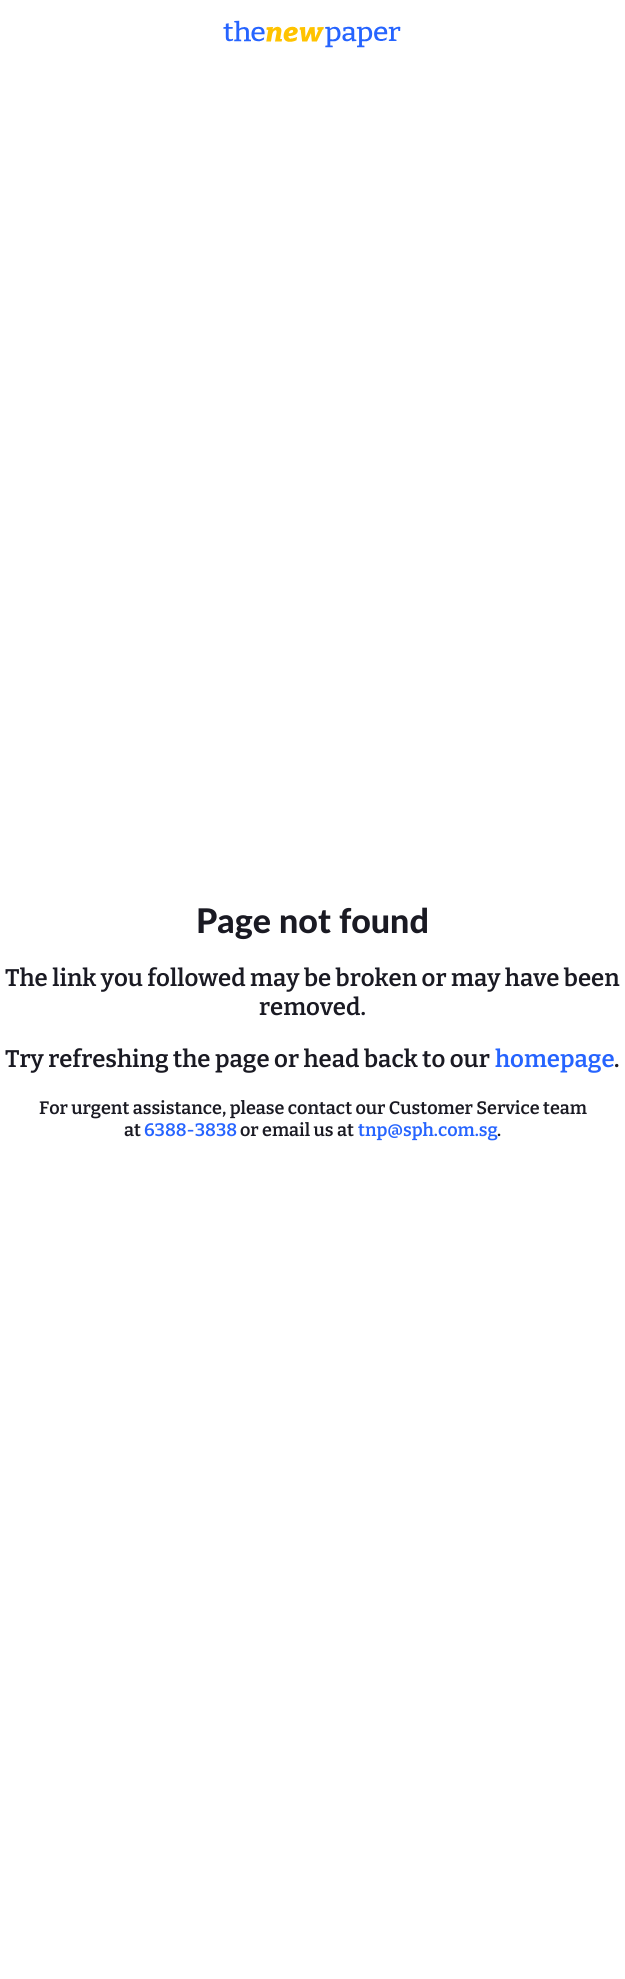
import math
import cairocffi as cairo

surface = cairo.ImageSurface(cairo.FORMAT_RGB24, 625, 1979)
ctx = cairo.Context(surface)
options = cairo.FontOptions()
options.set_hint_metrics(cairo.HINT_METRICS_OFF)
options.set_hint_style(cairo.HINT_STYLE_NONE)
ctx.set_font_options(options)
ctx.set_miter_limit(4)


def rgb(r, g, b):
    ctx.set_source_rgb(r / 255, g / 255, b / 255)


def face(family, size, italic, bold):
    ctx.select_font_face(family, cairo.FONT_SLANT_ITALIC if italic else cairo.FONT_SLANT_NORMAL, cairo.FONT_WEIGHT_BOLD if bold else cairo.FONT_WEIGHT_NORMAL)
    ctx.set_font_size(size)


def label(x, y, s):
    ctx.move_to(x, y)
    ctx.show_text(s)


def image(path, x, y, w, h):
    ctx.save()
    ctx.set_source_surface(cairo.ImageSurface.create_from_png(path), x, y)
    ctx.rectangle(x, y, w, h)
    ctx.fill()
    ctx.restore()


rgb(255, 255, 255)
ctx.paint()
image('image0.png', 223, 20, 178, 28)
face('Lato Black', 34, 0, 0)
rgb(26, 26, 35)
label(196, 933, 'Page not found')
face('Bitter SemiBold', 24, 0, 0)
label(5, 986, 'The link you followed may be broken or may have been')
label(259, 1015, 'removed.')
label(5, 1067, 'Try refreshing the page or head back to our')
rgb(38, 100, 255)
label(495, 1067, 'homepage')
rgb(26, 26, 35)
label(614, 1067, '.')
face('Bitter SemiBold', 18, 0, 0)
label(39, 1114, 'For urgent assistance, please contact our Customer Service team')
label(124, 1136, 'at')
rgb(38, 100, 255)
label(144, 1136, '6388-3838')
rgb(26, 26, 35)
label(240, 1136, 'or email us at')
rgb(38, 100, 255)
label(358, 1136, 'tnp@sph.com.sg')
rgb(26, 26, 35)
label(497, 1136, '.')
surface.write_to_png('render.png')
